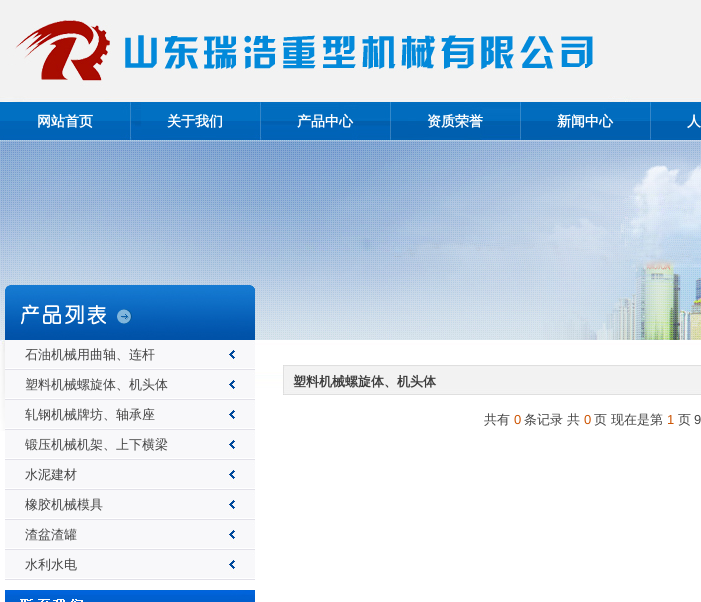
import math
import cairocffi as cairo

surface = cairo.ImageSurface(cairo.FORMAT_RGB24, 701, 602)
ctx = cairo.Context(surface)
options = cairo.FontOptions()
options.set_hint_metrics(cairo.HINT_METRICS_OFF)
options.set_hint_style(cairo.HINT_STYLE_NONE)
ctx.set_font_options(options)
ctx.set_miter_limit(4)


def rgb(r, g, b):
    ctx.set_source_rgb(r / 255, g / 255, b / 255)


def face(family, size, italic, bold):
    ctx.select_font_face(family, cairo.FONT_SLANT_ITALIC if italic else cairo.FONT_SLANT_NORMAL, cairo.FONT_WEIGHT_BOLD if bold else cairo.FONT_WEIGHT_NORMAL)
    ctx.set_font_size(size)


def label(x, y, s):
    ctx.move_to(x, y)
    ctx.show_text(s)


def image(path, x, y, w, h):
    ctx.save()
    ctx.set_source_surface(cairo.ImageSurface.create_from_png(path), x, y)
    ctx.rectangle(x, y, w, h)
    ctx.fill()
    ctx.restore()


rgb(255, 255, 255)
ctx.paint()
image('image0.png', 0, 0, 701, 140)
image('image1.png', 0, 20, 701, 82)
image('image2.png', 4, 102, 697, 38)
face('WenQuanYi Zen Hei', 14, 0, 1)
rgb(255, 255, 255)
label(37, 126, '网站首页')
label(167, 126, '关于我们')
label(297, 126, '产品中心')
label(427, 126, '资质荣誉')
label(557, 126, '新闻中心')
label(687, 126, '人')
image('image3.png', 0, 140, 701, 200)
image('image4.png', 0, 340, 701, 91)
image('image5.png', 5, 285, 250, 55)
image('image6.png', 5, 340, 250, 30)
face('WenQuanYi Zen Hei Medium', 13, 0, 0)
rgb(68, 68, 68)
label(25, 359, '石油机械用曲轴、连杆')
image('image6.png', 5, 370, 250, 30)
label(25, 389, '塑料机械螺旋体、机头体')
image('image6.png', 5, 400, 250, 30)
label(25, 419, '轧钢机械牌坊、轴承座')
image('image6.png', 5, 430, 250, 30)
label(25, 449, '锻压机械机架、上下横梁')
image('image6.png', 5, 460, 250, 30)
label(25, 479, '水泥建材')
image('image6.png', 5, 490, 250, 30)
label(25, 509, '橡胶机械模具')
image('image6.png', 5, 520, 250, 30)
label(25, 539, '渣盆渣罐')
image('image6.png', 5, 550, 250, 30)
label(25, 569, '水利水电')
image('image7.png', 5, 590, 250, 12)
image('image8.png', 283, 365, 418, 30)
face('WenQuanYi Zen Hei', 13, 0, 1)
rgb(61, 61, 61)
label(293, 386, '塑料机械螺旋体、机头体')
face('WenQuanYi Zen Hei Medium', 13, 0, 0)
rgb(68, 68, 68)
label(484, 424, '共有')
face('Liberation Sans', 13, 0, 0)
rgb(204, 82, 0)
label(514, 424, '0')
face('WenQuanYi Zen Hei Medium', 13, 0, 0)
rgb(68, 68, 68)
label(524, 424, '条记录 共')
face('Liberation Sans', 13, 0, 0)
rgb(204, 82, 0)
label(584, 424, '0')
face('WenQuanYi Zen Hei Medium', 13, 0, 0)
rgb(68, 68, 68)
label(594, 424, '页 现在是第')
face('Liberation Sans', 13, 0, 0)
rgb(204, 82, 0)
label(667, 424, '1')
face('WenQuanYi Zen Hei Medium', 13, 0, 0)
rgb(68, 68, 68)
label(678, 424, '页')
face('Liberation Sans', 13, 0, 0)
label(694, 424, '9')
surface.write_to_png('render.png')
